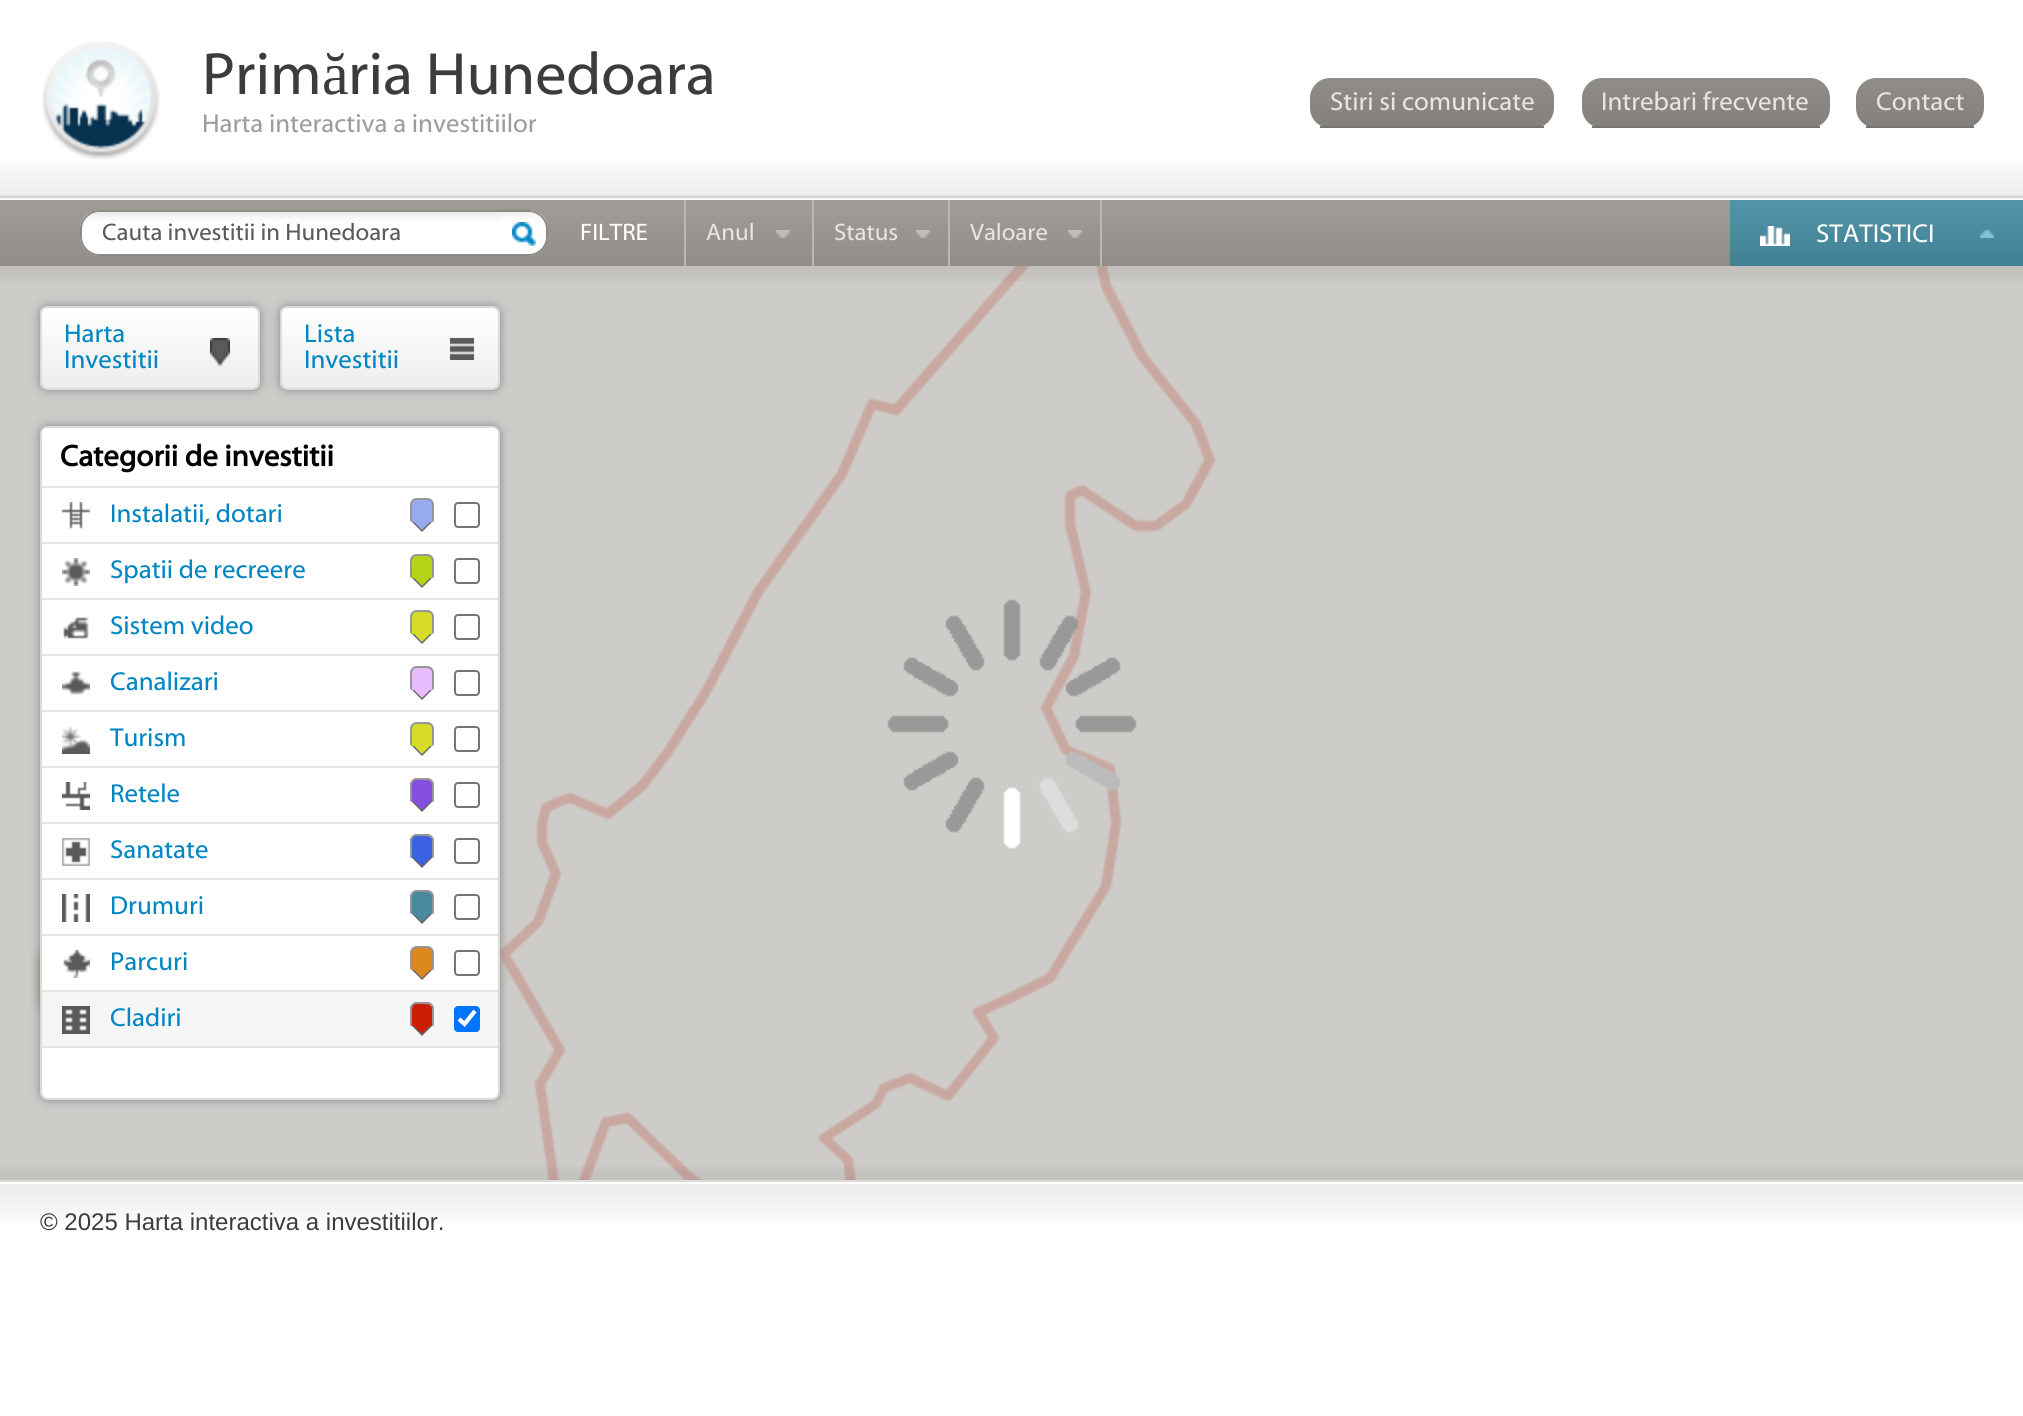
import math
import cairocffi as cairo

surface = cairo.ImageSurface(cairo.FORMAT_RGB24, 2023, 1416)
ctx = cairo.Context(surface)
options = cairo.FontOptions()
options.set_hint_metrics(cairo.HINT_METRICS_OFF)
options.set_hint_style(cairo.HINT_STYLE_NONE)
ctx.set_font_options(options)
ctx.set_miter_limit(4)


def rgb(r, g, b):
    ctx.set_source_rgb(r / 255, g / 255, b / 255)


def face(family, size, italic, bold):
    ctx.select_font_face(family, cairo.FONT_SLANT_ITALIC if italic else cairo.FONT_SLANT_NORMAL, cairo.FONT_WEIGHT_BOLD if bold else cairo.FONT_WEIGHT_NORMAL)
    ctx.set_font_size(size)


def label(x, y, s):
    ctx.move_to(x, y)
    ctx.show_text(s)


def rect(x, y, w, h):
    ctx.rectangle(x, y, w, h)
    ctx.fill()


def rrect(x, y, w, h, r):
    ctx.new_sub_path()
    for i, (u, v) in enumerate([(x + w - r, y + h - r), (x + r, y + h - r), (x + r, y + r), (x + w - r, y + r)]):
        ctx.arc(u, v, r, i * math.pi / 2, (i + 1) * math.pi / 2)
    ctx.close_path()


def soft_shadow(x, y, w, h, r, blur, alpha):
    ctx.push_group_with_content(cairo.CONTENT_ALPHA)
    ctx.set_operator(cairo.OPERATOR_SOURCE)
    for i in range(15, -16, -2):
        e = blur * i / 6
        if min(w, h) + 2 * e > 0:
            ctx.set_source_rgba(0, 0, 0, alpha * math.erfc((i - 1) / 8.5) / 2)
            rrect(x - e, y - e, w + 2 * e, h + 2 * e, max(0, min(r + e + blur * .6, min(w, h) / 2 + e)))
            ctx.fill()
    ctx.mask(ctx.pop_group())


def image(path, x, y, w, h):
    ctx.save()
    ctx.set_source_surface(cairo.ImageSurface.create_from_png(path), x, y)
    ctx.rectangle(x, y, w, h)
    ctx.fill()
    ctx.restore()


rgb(255, 255, 255)
ctx.paint()
image('image0.png', 0, 163, 2023, 36)
image('image1.png', 42, 41, 118, 119)
face('Myriad', 60, 0, 0)
rgb(60, 60, 60)
label(202, 94, 'Prim')
face('Liberation Serif', 60, 0, 0)
label(322, 94, 'ă')
face('Myriad', 60, 0, 0)
label(348, 94, 'ria Hunedoara')
face('Myriad', 26, 0, 0)
rgb(157, 157, 157)
label(202, 132, 'Harta interactiva a investitiilor')
ctx.save()
rrect(1310, 78, 244, 50, 20)
ctx.clip()
gradient = cairo.LinearGradient(1310, 78, 1310, 126)
gradient.add_color_stop_rgba(0, 0.565, 0.549, 0.533, 1)
gradient.add_color_stop_rgba(1, 0.518, 0.502, 0.49, 1)
ctx.set_source(gradient)
ctx.new_path()
ctx.move_to(1330, 78)
ctx.line_to(1534, 78)
ctx.curve_to(1545, 78, 1554, 87, 1554, 98)
ctx.line_to(1554, 126)
ctx.line_to(1310, 126)
ctx.line_to(1310, 98)
ctx.curve_to(1310, 87, 1319, 78, 1330, 78)
ctx.close_path()
ctx.fill()
ctx.restore()
rgb(118, 115, 113)
rect(1320, 126, 224, 2)
rgb(231, 228, 225)
label(1330, 110, 'Stiri si comunicate')
ctx.save()
rrect(1582, 78, 248, 50, 20)
ctx.clip()
gradient = cairo.LinearGradient(1582, 78, 1582, 126)
gradient.add_color_stop_rgba(0, 0.565, 0.549, 0.533, 1)
gradient.add_color_stop_rgba(1, 0.518, 0.502, 0.49, 1)
ctx.set_source(gradient)
ctx.new_path()
ctx.move_to(1602, 78)
ctx.line_to(1810, 78)
ctx.curve_to(1821, 78, 1830, 87, 1830, 98)
ctx.line_to(1830, 126)
ctx.line_to(1582, 126)
ctx.line_to(1582, 98)
ctx.curve_to(1582, 87, 1591, 78, 1602, 78)
ctx.close_path()
ctx.fill()
ctx.restore()
rgb(118, 115, 113)
rect(1592, 126, 228, 2)
rgb(231, 228, 225)
label(1601, 110, 'Intrebari frecvente')
ctx.save()
rrect(1856, 78, 128, 50, 20)
ctx.clip()
gradient = cairo.LinearGradient(1856, 78, 1856, 126)
gradient.add_color_stop_rgba(0, 0.565, 0.549, 0.533, 1)
gradient.add_color_stop_rgba(1, 0.518, 0.502, 0.49, 1)
ctx.set_source(gradient)
ctx.new_path()
ctx.move_to(1876, 78)
ctx.line_to(1964, 78)
ctx.curve_to(1975, 78, 1984, 87, 1984, 98)
ctx.line_to(1984, 126)
ctx.line_to(1856, 126)
ctx.line_to(1856, 98)
ctx.curve_to(1856, 87, 1865, 78, 1876, 78)
ctx.close_path()
ctx.fill()
ctx.restore()
rgb(118, 115, 113)
rect(1866, 126, 108, 2)
rgb(231, 228, 225)
label(1876, 110, 'Contact')
gradient = cairo.LinearGradient(0, 200, 0, 266)
gradient.add_color_stop_rgba(0, 0.627, 0.612, 0.592, 1)
gradient.add_color_stop_rgba(1, 0.569, 0.557, 0.537, 1)
ctx.set_source(gradient)
rect(0, 200, 1730, 66)
rgb(255, 255, 255)
ctx.new_path()
ctx.move_to(100, 210)
ctx.line_to(502, 210)
ctx.line_to(502, 256)
ctx.line_to(100, 256)
ctx.curve_to(89, 256, 80, 247, 80, 236)
ctx.line_to(80, 230)
ctx.curve_to(80, 219, 89, 210, 100, 210)
ctx.close_path()
ctx.fill()
image('image2.png', 80, 212, 422, 12)
rgb(140, 137, 132)
ctx.set_fill_rule(cairo.FILL_RULE_EVEN_ODD)
ctx.new_path()
ctx.move_to(99, 210)
ctx.line_to(502, 210)
ctx.line_to(502, 256)
ctx.line_to(99, 256)
ctx.curve_to(89, 256, 80, 247, 80, 237)
ctx.line_to(80, 229)
ctx.curve_to(80, 219, 89, 210, 99, 210)
ctx.close_path()
ctx.move_to(99, 212)
ctx.line_to(502, 212)
ctx.line_to(502, 254)
ctx.line_to(99, 254)
ctx.curve_to(90, 254, 82, 246, 82, 237)
ctx.line_to(82, 229)
ctx.curve_to(82, 220, 90, 212, 99, 212)
ctx.close_path()
ctx.fill()
face('Myriad', 24, 0, 0)
rgb(90, 90, 90)
label(102, 240, 'Cauta investitii in Hunedoara')
rgb(255, 255, 255)
ctx.new_path()
ctx.move_to(502, 210)
ctx.line_to(528, 210)
ctx.curve_to(539, 210, 548, 219, 548, 230)
ctx.line_to(548, 236)
ctx.curve_to(548, 247, 539, 256, 528, 256)
ctx.line_to(502, 256)
ctx.close_path()
ctx.fill()
image('image3.png', 502, 210, 45, 12)
image('image4.png', 512, 222, 24, 24)
rgb(140, 137, 132)
ctx.new_path()
ctx.move_to(502, 210)
ctx.line_to(529, 210)
ctx.curve_to(539, 210, 548, 219, 548, 229)
ctx.line_to(548, 237)
ctx.curve_to(548, 247, 539, 256, 529, 256)
ctx.line_to(502, 256)
ctx.close_path()
ctx.move_to(502, 212)
ctx.line_to(529, 212)
ctx.curve_to(538, 212, 546, 220, 546, 229)
ctx.line_to(546, 237)
ctx.curve_to(546, 246, 538, 254, 529, 254)
ctx.line_to(502, 254)
ctx.close_path()
ctx.fill()
rgb(187, 183, 177)
rect(684, 200, 2, 66)
rgb(255, 254, 254)
label(580, 240, 'FILTRE')
image('image5.png', 776, 230, 14, 8)
rgb(187, 183, 177)
rect(812, 200, 2, 66)
rgb(231, 228, 225)
label(706, 240, 'Anul')
image('image5.png', 916, 230, 14, 8)
rgb(187, 183, 177)
rect(948, 200, 2, 66)
rgb(231, 228, 225)
label(834, 240, 'Status')
image('image5.png', 1068, 230, 14, 8)
rgb(187, 183, 177)
rect(1100, 200, 2, 66)
rgb(231, 228, 225)
label(970, 240, 'Valoare')
gradient = cairo.LinearGradient(1730, 200, 1730, 266)
gradient.add_color_stop_rgba(0, 0.325, 0.58, 0.667, 1)
gradient.add_color_stop_rgba(1, 0.259, 0.506, 0.584, 1)
ctx.set_source(gradient)
rect(1730, 200, 293, 66)
image('image6.png', 1980, 230, 14, 8)
image('image7.png', 1760, 226, 30, 20)
face('Myriad', 26, 0, 0)
rgb(255, 254, 254)
label(1816, 242, 'STATISTICI')
rgb(206, 204, 201)
rect(0, 266, 2023, 914)
image('image8.png', 691, 658, 27, 48)
image('image9.png', 718, 266, 498, 440)
image('image10.png', 500, 706, 203, 474)
image('image11.png', 817, 706, 305, 474)
image('image12.png', 0, 266, 2023, 15)
rgb(136, 136, 136)
soft_shadow(40, 306, 220, 84, 8, 5, 1)
ctx.save()
ctx.set_fill_rule(cairo.FILL_RULE_WINDING)
rrect(40, 306, 220, 84, 8)
ctx.clip()
gradient = cairo.LinearGradient(42, 308, 42, 388)
gradient.add_color_stop_rgba(0, 1, 1, 1, 1)
gradient.add_color_stop_rgba(1, 0.929, 0.929, 0.929, 1)
ctx.set_source(gradient)
rect(40, 308, 220, 80)
ctx.restore()
rrect(41, 307, 218, 82, 7)
rgb(221, 218, 215)
ctx.stroke()
image('image13.png', 210, 338, 20, 28)
rgb(1, 133, 195)
label(64, 342, 'Harta')
label(64, 368, 'Investitii')
rgb(136, 136, 136)
soft_shadow(280, 306, 220, 84, 8, 5, 1)
ctx.save()
ctx.set_fill_rule(cairo.FILL_RULE_WINDING)
rrect(280, 306, 220, 84, 8)
ctx.clip()
gradient = cairo.LinearGradient(282, 308, 282, 388)
gradient.add_color_stop_rgba(0, 1, 1, 1, 1)
gradient.add_color_stop_rgba(1, 0.929, 0.929, 0.929, 1)
ctx.set_source(gradient)
rect(280, 308, 220, 80)
ctx.restore()
rrect(281, 307, 218, 82, 7)
rgb(221, 218, 215)
ctx.stroke()
image('image14.png', 450, 338, 24, 22)
rgb(1, 133, 195)
label(304, 342, 'Lista')
label(304, 368, 'Investitii')
rgb(136, 136, 136)
soft_shadow(40, 426, 460, 674, 8, 5, 1)
soft_shadow(40, 950, 72, 58, 8, 5, 1)
rgb(255, 255, 255)
rrect(41, 427, 458, 672, 7)
ctx.fill_preserve()
rgb(221, 218, 215)
ctx.stroke()
rgb(255, 255, 255)
ctx.new_path()
ctx.move_to(47, 428)
ctx.line_to(493, 428)
ctx.curve_to(496, 428, 498, 430, 498, 433)
ctx.line_to(498, 488)
ctx.line_to(42, 488)
ctx.line_to(42, 433)
ctx.curve_to(42, 430, 44, 428, 47, 428)
ctx.close_path()
ctx.fill()
rgb(228, 228, 228)
rect(42, 486, 456, 2)
face('Myriad', 30, 0, 1)
rgb(0, 0, 0)
label(60, 466, 'Categorii de investitii')
image('image15.png', 62, 502, 28, 27)
rgb(228, 228, 228)
rect(42, 542, 456, 2)
face('Myriad', 26, 0, 0)
rgb(1, 133, 195)
label(110, 522, 'Instalatii, dotari')
rgb(150, 171, 239)
ctx.new_path()
ctx.move_to(418, 498)
ctx.line_to(426, 498)
ctx.curve_to(430.5, 498, 434, 501.5, 434, 506)
ctx.line_to(434, 520)
ctx.curve_to(434, 521, 433, 522, 432, 522)
ctx.line_to(412, 522)
ctx.curve_to(411, 522, 410, 521, 410, 520)
ctx.line_to(410, 506)
ctx.curve_to(410, 501.5, 413.5, 498, 418, 498)
ctx.close_path()
ctx.fill()
rgb(152, 150, 150)
ctx.new_path()
ctx.move_to(417, 498)
ctx.line_to(427, 498)
ctx.curve_to(431, 498, 434, 501, 434, 505)
ctx.line_to(434, 519.5)
ctx.curve_to(434, 521, 433, 522, 431.5, 522)
ctx.line_to(412.5, 522)
ctx.curve_to(411, 522, 410, 521, 410, 519.5)
ctx.line_to(410, 505)
ctx.curve_to(410, 501, 413, 498, 417, 498)
ctx.close_path()
ctx.move_to(417, 500)
ctx.line_to(423.5, 500)
ctx.curve_to(427, 500, 431, 500, 432, 504)
ctx.line_to(432, 515)
ctx.line_to(432, 521.5)
ctx.line_to(431.5, 522)
ctx.line_to(412.5, 522)
ctx.line_to(412, 521.5)
ctx.line_to(412, 512.5)
ctx.curve_to(412, 508, 410.5, 500, 417, 500)
ctx.close_path()
ctx.fill()
rgb(102, 102, 102)
ctx.set_fill_rule(cairo.FILL_RULE_WINDING)
ctx.new_path()
ctx.move_to(412, 522)
ctx.line_to(432, 522)
ctx.line_to(422, 532)
ctx.close_path()
ctx.fill()
rgb(150, 171, 239)
ctx.new_path()
ctx.move_to(412, 520)
ctx.line_to(432, 520)
ctx.line_to(422, 530)
ctx.close_path()
ctx.fill()
rrect(455, 503, 24, 24, 3)
rgb(118, 118, 118)
ctx.stroke()
image('image16.png', 62, 558, 28, 28)
rgb(228, 228, 228)
rect(42, 598, 456, 2)
rgb(1, 133, 195)
label(110, 578, 'Spatii de recreere')
rgb(179, 213, 21)
ctx.new_path()
ctx.move_to(418, 554)
ctx.line_to(426, 554)
ctx.curve_to(430.5, 554, 434, 557.5, 434, 562)
ctx.line_to(434, 576)
ctx.curve_to(434, 577, 433, 578, 432, 578)
ctx.line_to(412, 578)
ctx.curve_to(411, 578, 410, 577, 410, 576)
ctx.line_to(410, 562)
ctx.curve_to(410, 557.5, 413.5, 554, 418, 554)
ctx.close_path()
ctx.fill()
rgb(152, 150, 150)
ctx.set_fill_rule(cairo.FILL_RULE_EVEN_ODD)
ctx.new_path()
ctx.move_to(417, 554)
ctx.line_to(427, 554)
ctx.curve_to(431, 554, 434, 557, 434, 561)
ctx.line_to(434, 575.5)
ctx.curve_to(434, 577, 433, 578, 431.5, 578)
ctx.line_to(412.5, 578)
ctx.curve_to(411, 578, 410, 577, 410, 575.5)
ctx.line_to(410, 561)
ctx.curve_to(410, 557, 413, 554, 417, 554)
ctx.close_path()
ctx.move_to(417, 556)
ctx.line_to(423.5, 556)
ctx.curve_to(427, 556, 431, 556, 432, 560)
ctx.line_to(432, 571)
ctx.line_to(432, 577.5)
ctx.line_to(431.5, 578)
ctx.line_to(412.5, 578)
ctx.line_to(412, 577.5)
ctx.line_to(412, 568.5)
ctx.curve_to(412, 564, 410.5, 556, 417, 556)
ctx.close_path()
ctx.fill()
rgb(102, 102, 102)
ctx.set_fill_rule(cairo.FILL_RULE_WINDING)
ctx.new_path()
ctx.move_to(412, 578)
ctx.line_to(432, 578)
ctx.line_to(422, 588)
ctx.close_path()
ctx.fill()
rgb(179, 213, 21)
ctx.new_path()
ctx.move_to(412, 576)
ctx.line_to(432, 576)
ctx.line_to(422, 586)
ctx.close_path()
ctx.fill()
rrect(455, 559, 24, 24, 3)
rgb(118, 118, 118)
ctx.stroke()
image('image17.png', 63, 617, 26, 22)
rgb(228, 228, 228)
rect(42, 654, 456, 2)
rgb(1, 133, 195)
label(110, 634, 'Sistem video')
rgb(214, 220, 38)
ctx.new_path()
ctx.move_to(418, 610)
ctx.line_to(426, 610)
ctx.curve_to(430.5, 610, 434, 613.5, 434, 618)
ctx.line_to(434, 632)
ctx.curve_to(434, 633, 433, 634, 432, 634)
ctx.line_to(412, 634)
ctx.curve_to(411, 634, 410, 633, 410, 632)
ctx.line_to(410, 618)
ctx.curve_to(410, 613.5, 413.5, 610, 418, 610)
ctx.close_path()
ctx.fill()
rgb(152, 150, 150)
ctx.set_fill_rule(cairo.FILL_RULE_EVEN_ODD)
ctx.new_path()
ctx.move_to(417, 610)
ctx.line_to(427, 610)
ctx.curve_to(431, 610, 434, 613, 434, 617)
ctx.line_to(434, 631.5)
ctx.curve_to(434, 633, 433, 634, 431.5, 634)
ctx.line_to(412.5, 634)
ctx.curve_to(411, 634, 410, 633, 410, 631.5)
ctx.line_to(410, 617)
ctx.curve_to(410, 613, 413, 610, 417, 610)
ctx.close_path()
ctx.move_to(417, 612)
ctx.line_to(423.5, 612)
ctx.curve_to(427, 612, 431, 612, 432, 616)
ctx.line_to(432, 627)
ctx.line_to(432, 633.5)
ctx.line_to(431.5, 634)
ctx.line_to(412.5, 634)
ctx.line_to(412, 633.5)
ctx.line_to(412, 624.5)
ctx.curve_to(412, 620, 410.5, 612, 417, 612)
ctx.close_path()
ctx.fill()
rgb(102, 102, 102)
ctx.set_fill_rule(cairo.FILL_RULE_WINDING)
ctx.new_path()
ctx.move_to(412, 634)
ctx.line_to(432, 634)
ctx.line_to(422, 644)
ctx.close_path()
ctx.fill()
rgb(214, 220, 38)
ctx.new_path()
ctx.move_to(412, 632)
ctx.line_to(432, 632)
ctx.line_to(422, 642)
ctx.close_path()
ctx.fill()
rrect(455, 615, 24, 24, 3)
rgb(118, 118, 118)
ctx.stroke()
image('image18.png', 62, 671, 28, 24)
rgb(228, 228, 228)
rect(42, 710, 456, 2)
rgb(1, 133, 195)
label(110, 690, 'Canalizari')
rgb(233, 189, 253)
ctx.new_path()
ctx.move_to(418, 666)
ctx.line_to(426, 666)
ctx.curve_to(430.5, 666, 434, 669.5, 434, 674)
ctx.line_to(434, 688)
ctx.curve_to(434, 689, 433, 690, 432, 690)
ctx.line_to(412, 690)
ctx.curve_to(411, 690, 410, 689, 410, 688)
ctx.line_to(410, 674)
ctx.curve_to(410, 669.5, 413.5, 666, 418, 666)
ctx.close_path()
ctx.fill()
rgb(152, 150, 150)
ctx.set_fill_rule(cairo.FILL_RULE_EVEN_ODD)
ctx.new_path()
ctx.move_to(417, 666)
ctx.line_to(427, 666)
ctx.curve_to(431, 666, 434, 669, 434, 673)
ctx.line_to(434, 687.5)
ctx.curve_to(434, 689, 433, 690, 431.5, 690)
ctx.line_to(412.5, 690)
ctx.curve_to(411, 690, 410, 689, 410, 687.5)
ctx.line_to(410, 673)
ctx.curve_to(410, 669, 413, 666, 417, 666)
ctx.close_path()
ctx.move_to(417, 668)
ctx.line_to(423.5, 668)
ctx.curve_to(427, 668, 431, 668, 432, 672)
ctx.line_to(432, 683)
ctx.line_to(432, 689.5)
ctx.line_to(431.5, 690)
ctx.line_to(412.5, 690)
ctx.line_to(412, 689.5)
ctx.line_to(412, 680.5)
ctx.curve_to(412, 676, 410.5, 668, 417, 668)
ctx.close_path()
ctx.fill()
rgb(102, 102, 102)
ctx.set_fill_rule(cairo.FILL_RULE_WINDING)
ctx.new_path()
ctx.move_to(412, 690)
ctx.line_to(432, 690)
ctx.line_to(422, 700)
ctx.close_path()
ctx.fill()
rgb(233, 189, 253)
ctx.new_path()
ctx.move_to(412, 688)
ctx.line_to(432, 688)
ctx.line_to(422, 698)
ctx.close_path()
ctx.fill()
rrect(455, 671, 24, 24, 3)
rgb(118, 118, 118)
ctx.stroke()
image('image19.png', 62, 726, 28, 28)
rgb(228, 228, 228)
rect(42, 766, 456, 2)
rgb(1, 133, 195)
label(110, 746, 'Turism')
rgb(214, 220, 38)
ctx.new_path()
ctx.move_to(418, 722)
ctx.line_to(426, 722)
ctx.curve_to(430.5, 722, 434, 725.5, 434, 730)
ctx.line_to(434, 744)
ctx.curve_to(434, 745, 433, 746, 432, 746)
ctx.line_to(412, 746)
ctx.curve_to(411, 746, 410, 745, 410, 744)
ctx.line_to(410, 730)
ctx.curve_to(410, 725.5, 413.5, 722, 418, 722)
ctx.close_path()
ctx.fill()
rgb(152, 150, 150)
ctx.set_fill_rule(cairo.FILL_RULE_EVEN_ODD)
ctx.new_path()
ctx.move_to(417, 722)
ctx.line_to(427, 722)
ctx.curve_to(431, 722, 434, 725, 434, 729)
ctx.line_to(434, 743.5)
ctx.curve_to(434, 745, 433, 746, 431.5, 746)
ctx.line_to(412.5, 746)
ctx.curve_to(411, 746, 410, 745, 410, 743.5)
ctx.line_to(410, 729)
ctx.curve_to(410, 725, 413, 722, 417, 722)
ctx.close_path()
ctx.move_to(417, 724)
ctx.line_to(423.5, 724)
ctx.curve_to(427, 724, 431, 724, 432, 728)
ctx.line_to(432, 739)
ctx.line_to(432, 745.5)
ctx.line_to(431.5, 746)
ctx.line_to(412.5, 746)
ctx.line_to(412, 745.5)
ctx.line_to(412, 736.5)
ctx.curve_to(412, 732, 410.5, 724, 417, 724)
ctx.close_path()
ctx.fill()
rgb(102, 102, 102)
ctx.set_fill_rule(cairo.FILL_RULE_WINDING)
ctx.new_path()
ctx.move_to(412, 746)
ctx.line_to(432, 746)
ctx.line_to(422, 756)
ctx.close_path()
ctx.fill()
rgb(214, 220, 38)
ctx.new_path()
ctx.move_to(412, 744)
ctx.line_to(432, 744)
ctx.line_to(422, 754)
ctx.close_path()
ctx.fill()
rrect(455, 727, 24, 24, 3)
rgb(118, 118, 118)
ctx.stroke()
image('image20.png', 62, 782, 28, 28)
rgb(228, 228, 228)
rect(42, 822, 456, 2)
rgb(1, 133, 195)
label(110, 802, 'Retele')
rgb(133, 78, 224)
ctx.new_path()
ctx.move_to(418, 778)
ctx.line_to(426, 778)
ctx.curve_to(430.5, 778, 434, 781.5, 434, 786)
ctx.line_to(434, 800)
ctx.curve_to(434, 801, 433, 802, 432, 802)
ctx.line_to(412, 802)
ctx.curve_to(411, 802, 410, 801, 410, 800)
ctx.line_to(410, 786)
ctx.curve_to(410, 781.5, 413.5, 778, 418, 778)
ctx.close_path()
ctx.fill()
rgb(152, 150, 150)
ctx.set_fill_rule(cairo.FILL_RULE_EVEN_ODD)
ctx.new_path()
ctx.move_to(417, 778)
ctx.line_to(427, 778)
ctx.curve_to(431, 778, 434, 781, 434, 785)
ctx.line_to(434, 799.5)
ctx.curve_to(434, 801, 433, 802, 431.5, 802)
ctx.line_to(412.5, 802)
ctx.curve_to(411, 802, 410, 801, 410, 799.5)
ctx.line_to(410, 785)
ctx.curve_to(410, 781, 413, 778, 417, 778)
ctx.close_path()
ctx.move_to(417, 780)
ctx.line_to(423.5, 780)
ctx.curve_to(427, 780, 431, 780, 432, 784)
ctx.line_to(432, 795)
ctx.line_to(432, 801.5)
ctx.line_to(431.5, 802)
ctx.line_to(412.5, 802)
ctx.line_to(412, 801.5)
ctx.line_to(412, 792.5)
ctx.curve_to(412, 788, 410.5, 780, 417, 780)
ctx.close_path()
ctx.fill()
rgb(102, 102, 102)
ctx.set_fill_rule(cairo.FILL_RULE_WINDING)
ctx.new_path()
ctx.move_to(412, 802)
ctx.line_to(432, 802)
ctx.line_to(422, 812)
ctx.close_path()
ctx.fill()
rgb(133, 78, 224)
ctx.new_path()
ctx.move_to(412, 800)
ctx.line_to(432, 800)
ctx.line_to(422, 810)
ctx.close_path()
ctx.fill()
rrect(455, 783, 24, 24, 3)
rgb(118, 118, 118)
ctx.stroke()
image('image21.png', 62, 838, 28, 28)
rgb(228, 228, 228)
rect(42, 878, 456, 2)
rgb(1, 133, 195)
label(110, 858, 'Sanatate')
rgb(58, 98, 226)
ctx.new_path()
ctx.move_to(418, 834)
ctx.line_to(426, 834)
ctx.curve_to(430.5, 834, 434, 837.5, 434, 842)
ctx.line_to(434, 856)
ctx.curve_to(434, 857, 433, 858, 432, 858)
ctx.line_to(412, 858)
ctx.curve_to(411, 858, 410, 857, 410, 856)
ctx.line_to(410, 842)
ctx.curve_to(410, 837.5, 413.5, 834, 418, 834)
ctx.close_path()
ctx.fill()
rgb(152, 150, 150)
ctx.set_fill_rule(cairo.FILL_RULE_EVEN_ODD)
ctx.new_path()
ctx.move_to(417, 834)
ctx.line_to(427, 834)
ctx.curve_to(431, 834, 434, 837, 434, 841)
ctx.line_to(434, 855.5)
ctx.curve_to(434, 857, 433, 858, 431.5, 858)
ctx.line_to(412.5, 858)
ctx.curve_to(411, 858, 410, 857, 410, 855.5)
ctx.line_to(410, 841)
ctx.curve_to(410, 837, 413, 834, 417, 834)
ctx.close_path()
ctx.move_to(417, 836)
ctx.line_to(423.5, 836)
ctx.curve_to(427, 836, 431, 836, 432, 840)
ctx.line_to(432, 851)
ctx.line_to(432, 857.5)
ctx.line_to(431.5, 858)
ctx.line_to(412.5, 858)
ctx.line_to(412, 857.5)
ctx.line_to(412, 848.5)
ctx.curve_to(412, 844, 410.5, 836, 417, 836)
ctx.close_path()
ctx.fill()
rgb(102, 102, 102)
ctx.set_fill_rule(cairo.FILL_RULE_WINDING)
ctx.new_path()
ctx.move_to(412, 858)
ctx.line_to(432, 858)
ctx.line_to(422, 868)
ctx.close_path()
ctx.fill()
rgb(58, 98, 226)
ctx.new_path()
ctx.move_to(412, 856)
ctx.line_to(432, 856)
ctx.line_to(422, 866)
ctx.close_path()
ctx.fill()
rrect(455, 839, 24, 24, 3)
rgb(118, 118, 118)
ctx.stroke()
image('image22.png', 62, 894, 28, 28)
rgb(228, 228, 228)
rect(42, 934, 456, 2)
rgb(1, 133, 195)
label(110, 914, 'Drumuri')
rgb(74, 138, 159)
ctx.new_path()
ctx.move_to(418, 890)
ctx.line_to(426, 890)
ctx.curve_to(430.5, 890, 434, 893.5, 434, 898)
ctx.line_to(434, 912)
ctx.curve_to(434, 913, 433, 914, 432, 914)
ctx.line_to(412, 914)
ctx.curve_to(411, 914, 410, 913, 410, 912)
ctx.line_to(410, 898)
ctx.curve_to(410, 893.5, 413.5, 890, 418, 890)
ctx.close_path()
ctx.fill()
rgb(152, 150, 150)
ctx.set_fill_rule(cairo.FILL_RULE_EVEN_ODD)
ctx.new_path()
ctx.move_to(417, 890)
ctx.line_to(427, 890)
ctx.curve_to(431, 890, 434, 893, 434, 897)
ctx.line_to(434, 911.5)
ctx.curve_to(434, 913, 433, 914, 431.5, 914)
ctx.line_to(412.5, 914)
ctx.curve_to(411, 914, 410, 913, 410, 911.5)
ctx.line_to(410, 897)
ctx.curve_to(410, 893, 413, 890, 417, 890)
ctx.close_path()
ctx.move_to(417, 892)
ctx.line_to(423.5, 892)
ctx.curve_to(427, 892, 431, 892, 432, 896)
ctx.line_to(432, 907)
ctx.line_to(432, 913.5)
ctx.line_to(431.5, 914)
ctx.line_to(412.5, 914)
ctx.line_to(412, 913.5)
ctx.line_to(412, 904.5)
ctx.curve_to(412, 900, 410.5, 892, 417, 892)
ctx.close_path()
ctx.fill()
rgb(102, 102, 102)
ctx.set_fill_rule(cairo.FILL_RULE_WINDING)
ctx.new_path()
ctx.move_to(412, 914)
ctx.line_to(432, 914)
ctx.line_to(422, 924)
ctx.close_path()
ctx.fill()
rgb(74, 138, 159)
ctx.new_path()
ctx.move_to(412, 912)
ctx.line_to(432, 912)
ctx.line_to(422, 922)
ctx.close_path()
ctx.fill()
rrect(455, 895, 24, 24, 3)
rgb(118, 118, 118)
ctx.stroke()
image('image23.png', 63, 950, 27, 28)
rgb(228, 228, 228)
rect(42, 990, 456, 2)
rgb(1, 133, 195)
label(110, 970, 'Parcuri')
rgb(219, 136, 28)
ctx.new_path()
ctx.move_to(418, 946)
ctx.line_to(426, 946)
ctx.curve_to(430.5, 946, 434, 949.5, 434, 954)
ctx.line_to(434, 968)
ctx.curve_to(434, 969, 433, 970, 432, 970)
ctx.line_to(412, 970)
ctx.curve_to(411, 970, 410, 969, 410, 968)
ctx.line_to(410, 954)
ctx.curve_to(410, 949.5, 413.5, 946, 418, 946)
ctx.close_path()
ctx.fill()
rgb(152, 150, 150)
ctx.set_fill_rule(cairo.FILL_RULE_EVEN_ODD)
ctx.new_path()
ctx.move_to(417, 946)
ctx.line_to(427, 946)
ctx.curve_to(431, 946, 434, 949, 434, 953)
ctx.line_to(434, 967.5)
ctx.curve_to(434, 969, 433, 970, 431.5, 970)
ctx.line_to(412.5, 970)
ctx.curve_to(411, 970, 410, 969, 410, 967.5)
ctx.line_to(410, 953)
ctx.curve_to(410, 949, 413, 946, 417, 946)
ctx.close_path()
ctx.move_to(417, 948)
ctx.line_to(423.5, 948)
ctx.curve_to(427, 948, 431, 948, 432, 952)
ctx.line_to(432, 963)
ctx.line_to(432, 969.5)
ctx.line_to(431.5, 970)
ctx.line_to(412.5, 970)
ctx.line_to(412, 969.5)
ctx.line_to(412, 960.5)
ctx.curve_to(412, 956, 410.5, 948, 417, 948)
ctx.close_path()
ctx.fill()
rgb(102, 102, 102)
ctx.set_fill_rule(cairo.FILL_RULE_WINDING)
ctx.new_path()
ctx.move_to(412, 970)
ctx.line_to(432, 970)
ctx.line_to(422, 980)
ctx.close_path()
ctx.fill()
rgb(219, 136, 28)
ctx.new_path()
ctx.move_to(412, 968)
ctx.line_to(432, 968)
ctx.line_to(422, 978)
ctx.close_path()
ctx.fill()
rrect(455, 951, 24, 24, 3)
rgb(118, 118, 118)
ctx.stroke()
rgb(246, 246, 246)
rect(42, 992, 456, 54)
image('image24.png', 62, 1006, 28, 28)
rgb(228, 228, 228)
rect(42, 1046, 456, 2)
rgb(1, 133, 195)
label(110, 1026, 'Cladiri')
rgb(204, 30, 7)
ctx.new_path()
ctx.move_to(418, 1002)
ctx.line_to(426, 1002)
ctx.curve_to(430.5, 1002, 434, 1005.5, 434, 1010)
ctx.line_to(434, 1024)
ctx.curve_to(434, 1025, 433, 1026, 432, 1026)
ctx.line_to(412, 1026)
ctx.curve_to(411, 1026, 410, 1025, 410, 1024)
ctx.line_to(410, 1010)
ctx.curve_to(410, 1005.5, 413.5, 1002, 418, 1002)
ctx.close_path()
ctx.fill()
rgb(152, 150, 150)
ctx.set_fill_rule(cairo.FILL_RULE_EVEN_ODD)
ctx.new_path()
ctx.move_to(417, 1002)
ctx.line_to(427, 1002)
ctx.curve_to(431, 1002, 434, 1005, 434, 1009)
ctx.line_to(434, 1023.5)
ctx.curve_to(434, 1025, 433, 1026, 431.5, 1026)
ctx.line_to(412.5, 1026)
ctx.curve_to(411, 1026, 410, 1025, 410, 1023.5)
ctx.line_to(410, 1009)
ctx.curve_to(410, 1005, 413, 1002, 417, 1002)
ctx.close_path()
ctx.move_to(417, 1004)
ctx.line_to(423.5, 1004)
ctx.curve_to(427, 1004, 431, 1004, 432, 1008)
ctx.line_to(432, 1019)
ctx.line_to(432, 1025.5)
ctx.line_to(431.5, 1026)
ctx.line_to(412.5, 1026)
ctx.line_to(412, 1025.5)
ctx.line_to(412, 1016.5)
ctx.curve_to(412, 1012, 410.5, 1004, 417, 1004)
ctx.close_path()
ctx.fill()
rgb(102, 102, 102)
ctx.set_fill_rule(cairo.FILL_RULE_WINDING)
ctx.new_path()
ctx.move_to(412, 1026)
ctx.line_to(432, 1026)
ctx.line_to(422, 1036)
ctx.close_path()
ctx.fill()
rgb(204, 30, 7)
ctx.new_path()
ctx.move_to(412, 1024)
ctx.line_to(432, 1024)
ctx.line_to(422, 1034)
ctx.close_path()
ctx.fill()
rgb(0, 117, 255)
rrect(454, 1006, 26, 26, 4)
ctx.fill()
ctx.new_path()
ctx.move_to(459, 1019)
ctx.line_to(464.5, 1024)
ctx.line_to(475, 1011)
rgb(255, 255, 255)
ctx.set_line_width(4.2)
ctx.stroke()
image('image25.png', 887, 599, 250, 250)
image('image26.png', 0, 1167, 2023, 13)
image('image27.png', 0, 1184, 2023, 37)
rgb(221, 218, 215)
rect(0, 1180, 2023, 2)
face('Liberation Sans', 24, 0, 0)
rgb(60, 60, 60)
label(40, 1230, '© 2025 Harta interactiva a investitiilor.')
surface.write_to_png('render.png')
